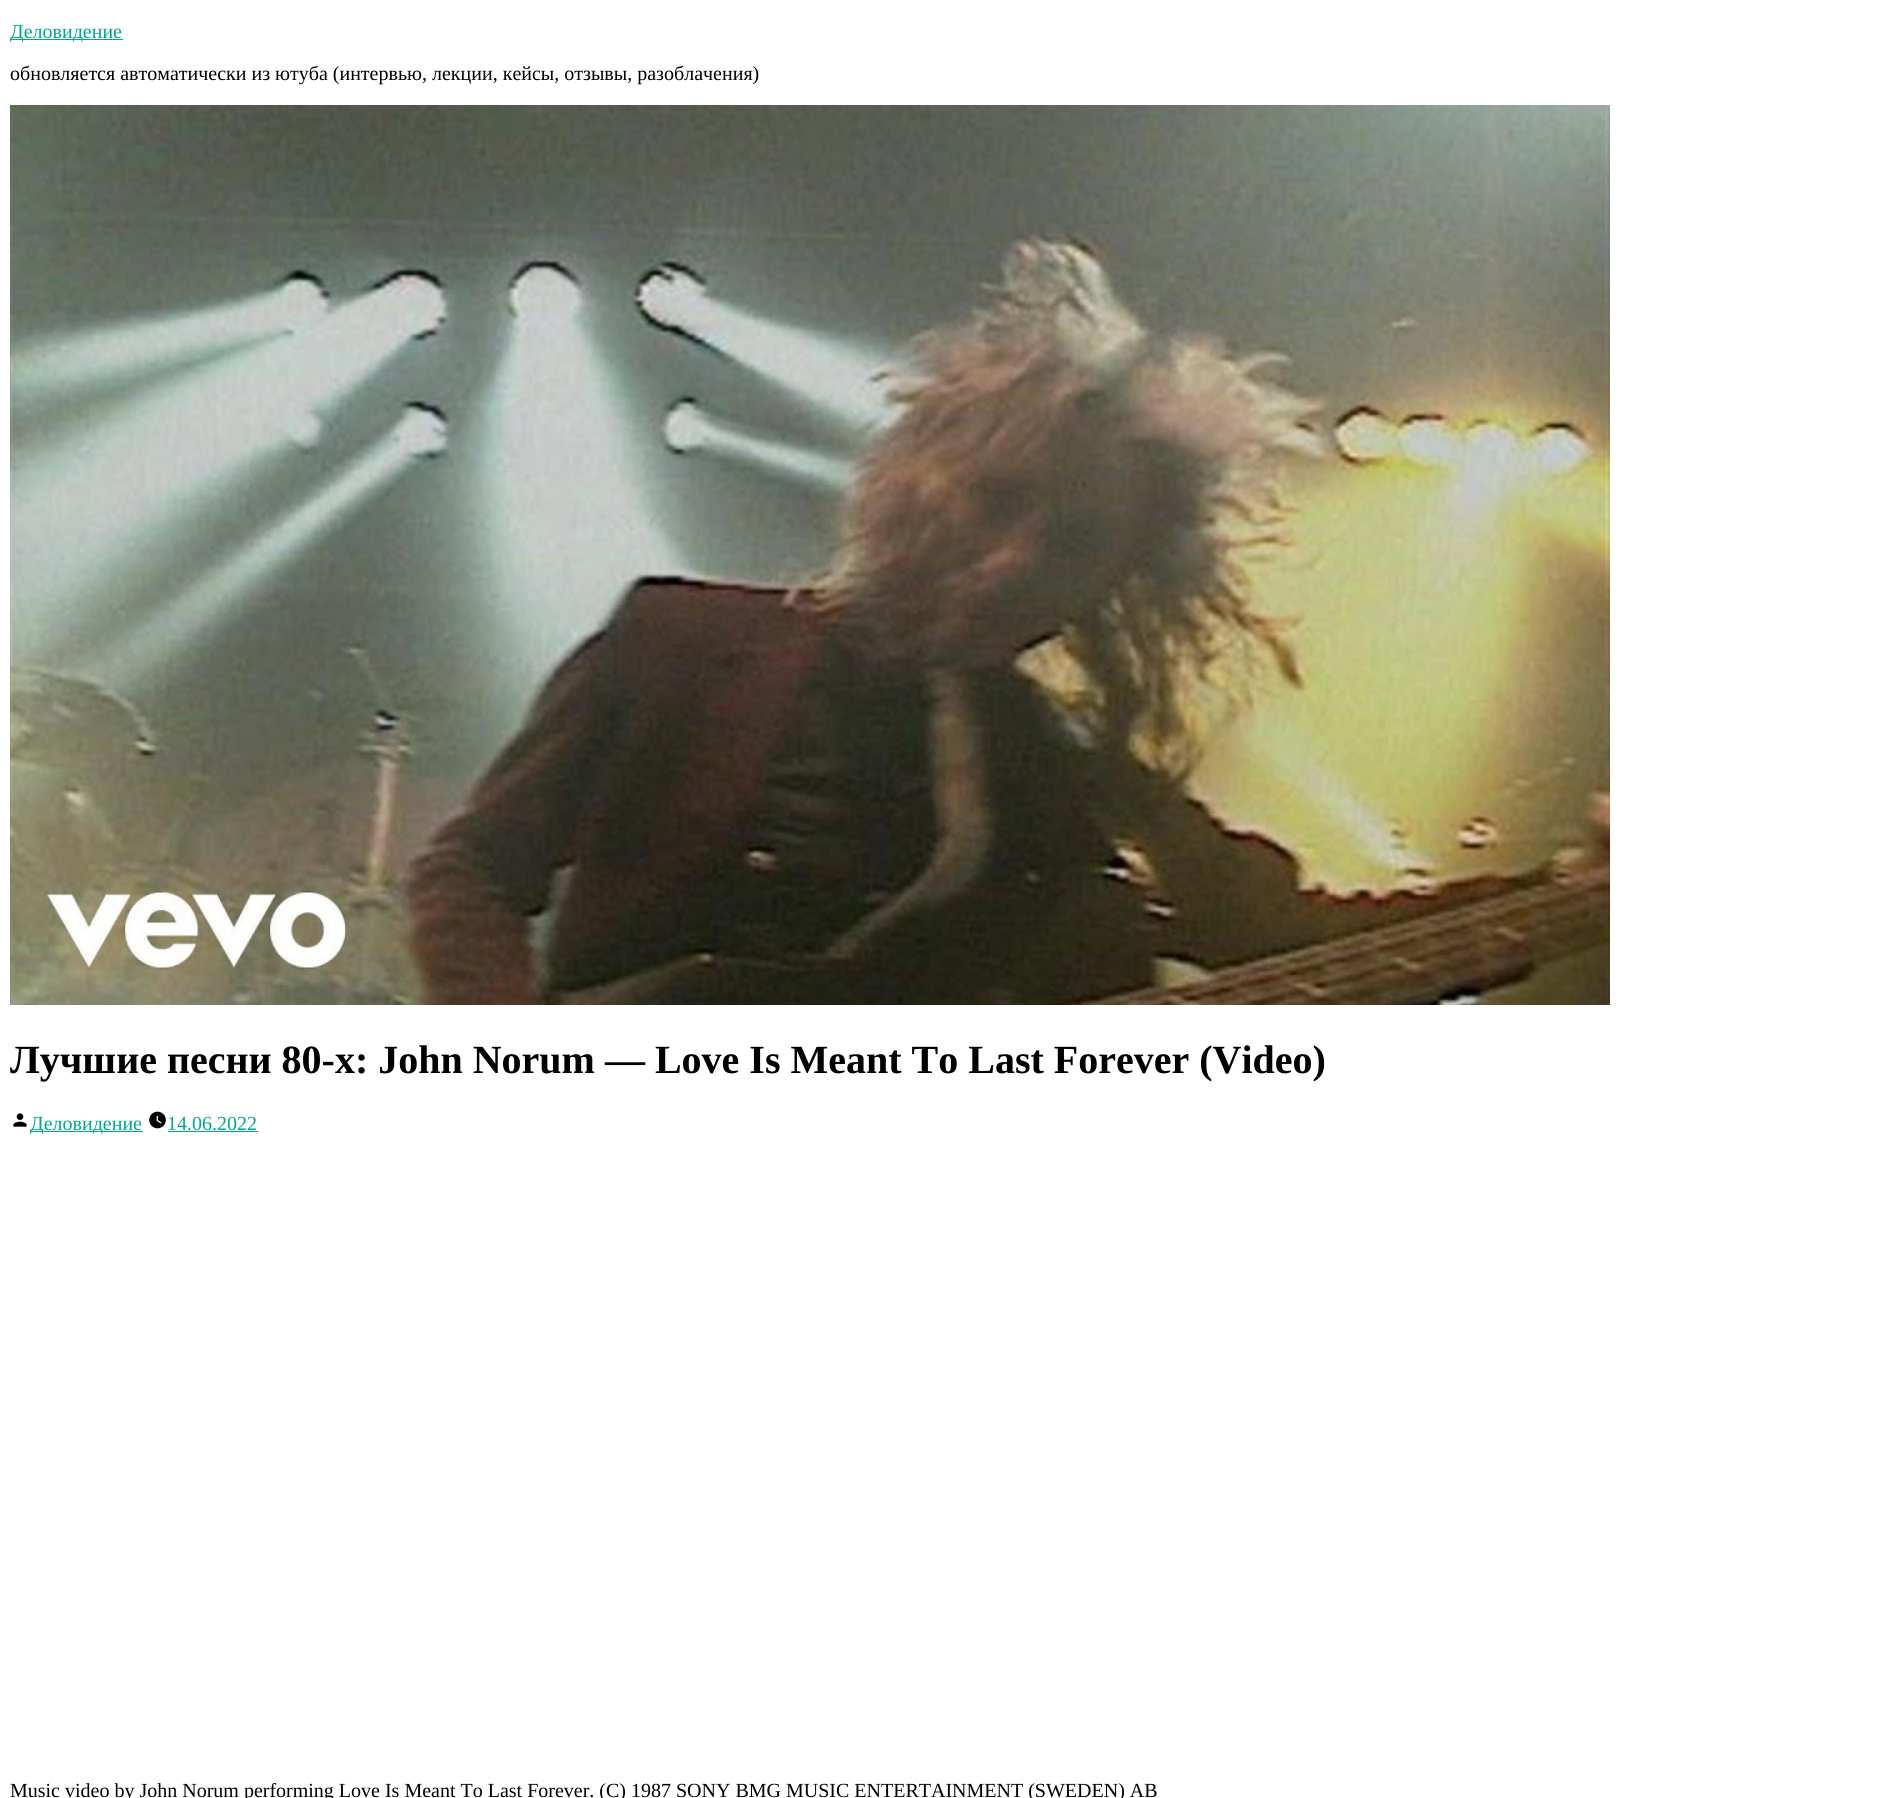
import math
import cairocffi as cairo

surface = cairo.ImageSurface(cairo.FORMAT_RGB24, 1897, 1798)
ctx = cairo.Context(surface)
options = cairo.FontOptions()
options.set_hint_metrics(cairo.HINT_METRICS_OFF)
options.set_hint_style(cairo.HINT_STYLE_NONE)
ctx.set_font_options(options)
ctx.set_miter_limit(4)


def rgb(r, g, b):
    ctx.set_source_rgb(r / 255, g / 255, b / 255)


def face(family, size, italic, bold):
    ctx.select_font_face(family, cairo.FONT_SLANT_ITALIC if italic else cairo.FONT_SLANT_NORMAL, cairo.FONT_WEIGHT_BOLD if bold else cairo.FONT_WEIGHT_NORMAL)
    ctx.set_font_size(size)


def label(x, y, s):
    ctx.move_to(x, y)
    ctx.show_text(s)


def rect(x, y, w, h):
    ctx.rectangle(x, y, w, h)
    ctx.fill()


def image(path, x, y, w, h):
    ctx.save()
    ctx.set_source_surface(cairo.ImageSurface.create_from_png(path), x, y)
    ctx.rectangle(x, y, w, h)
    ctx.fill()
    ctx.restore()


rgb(255, 255, 255)
ctx.paint()
rgb(0, 168, 137)
rect(10, 39, 113, 1)
face('Liberation Serif', 20, 0, 0)
label(10, 38, 'Деловидение')
rgb(0, 0, 0)
label(10, 80, 'обновляется автоматически из ютуба (интервью, лекции, кейсы, отзывы, разоблачения)')
image('image0.png', 10, 105, 1600, 900)
face('Liberation Serif', 40, 0, 1)
label(10, 1073, 'Лучшие песни 80-х: John Norum — Love Is Meant To Last Forever (Video)')
image('image1.png', 13, 1113, 14, 14)
rgb(0, 168, 137)
rect(30, 1131, 113, 1)
face('Liberation Serif', 20, 0, 0)
label(30, 1130, 'Деловидение')
image('image2.png', 149, 1111, 17, 18)
label(167, 1130, '14.06.2022')
rect(168, 1131, 90, 1)
rgb(0, 0, 0)
label(10, 1797, 'Music video by John Norum performing Love Is Meant To Last Forever. (C) 1987 SONY BMG MUSIC ENTERTAINMENT (SWEDEN) AB')
surface.write_to_png('render.png')
